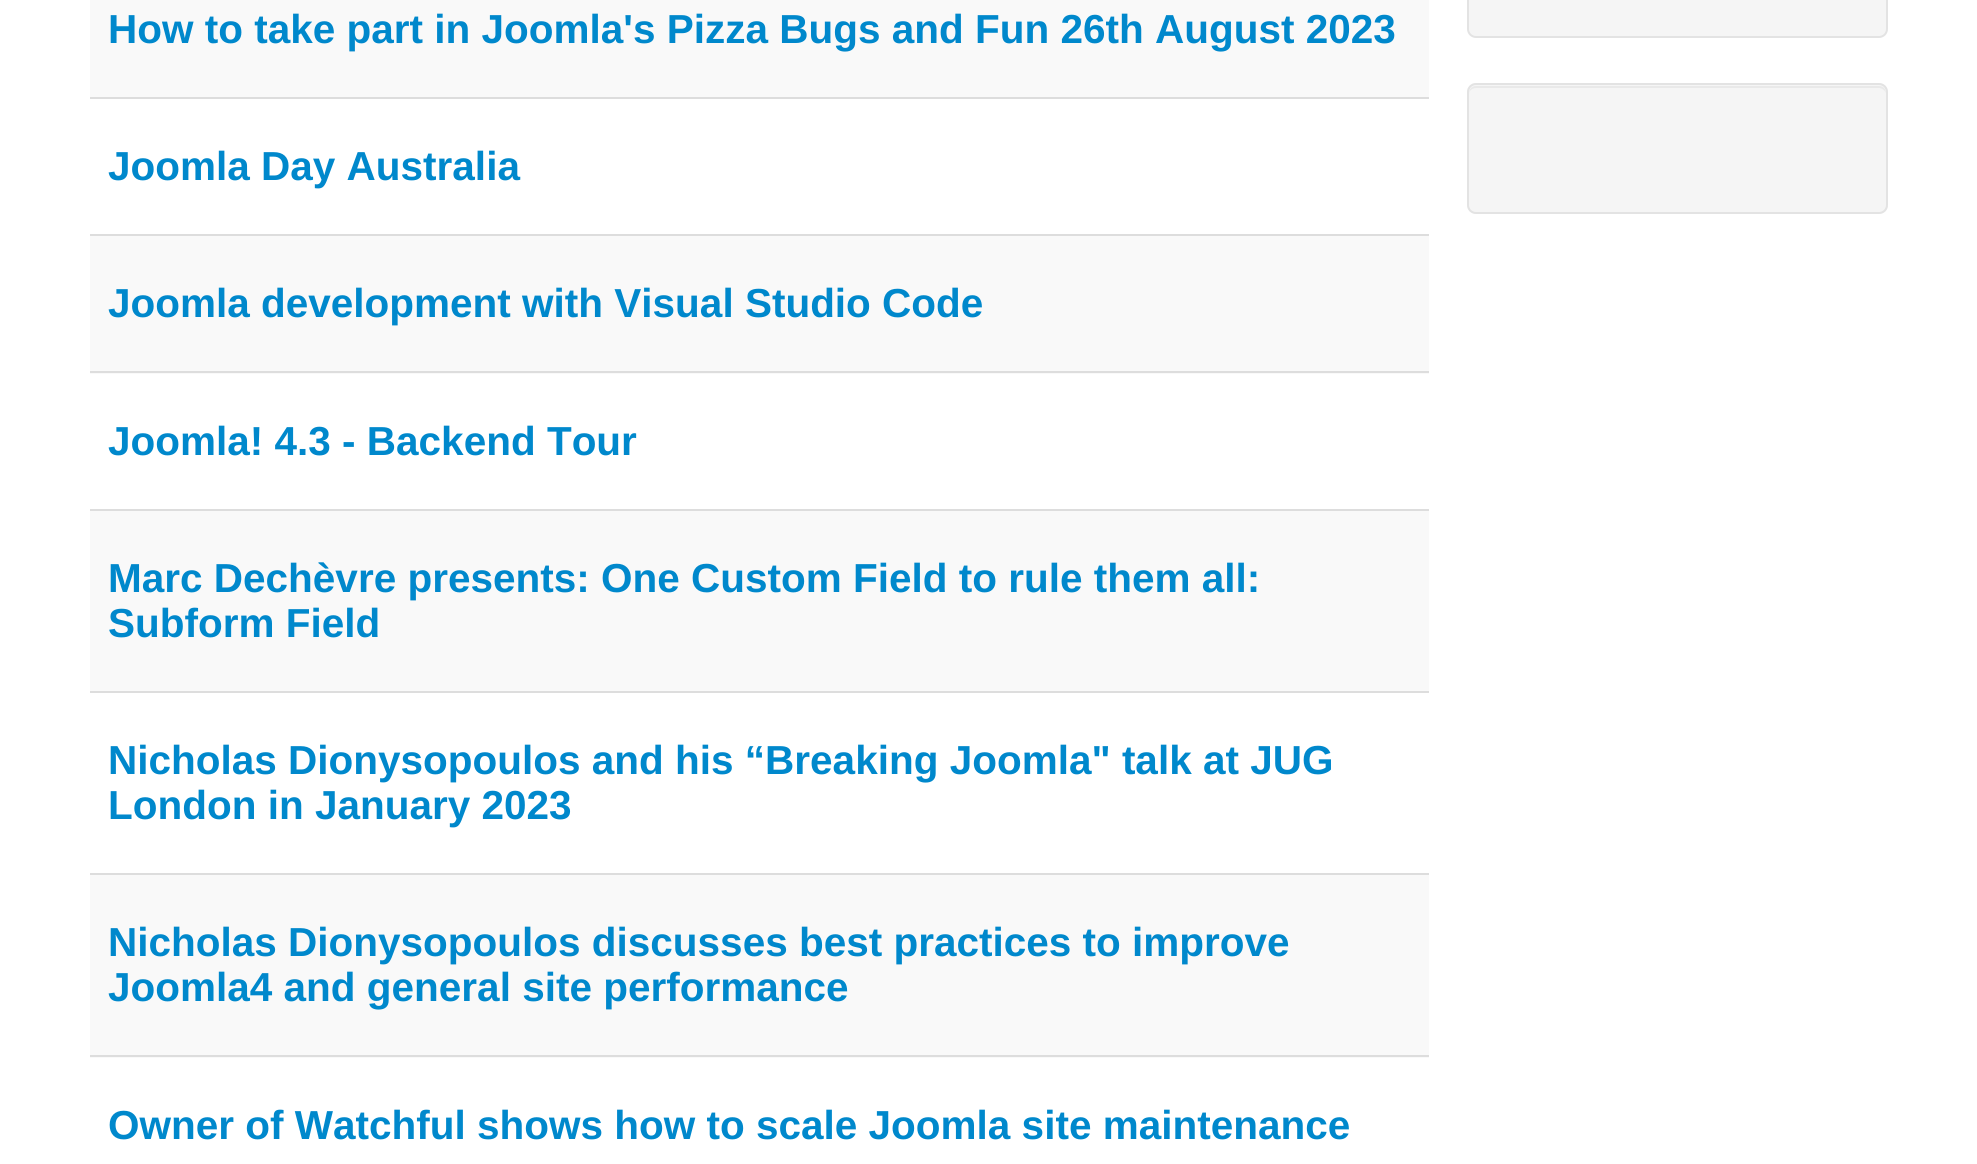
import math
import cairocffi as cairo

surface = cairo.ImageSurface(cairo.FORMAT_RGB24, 1977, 1164)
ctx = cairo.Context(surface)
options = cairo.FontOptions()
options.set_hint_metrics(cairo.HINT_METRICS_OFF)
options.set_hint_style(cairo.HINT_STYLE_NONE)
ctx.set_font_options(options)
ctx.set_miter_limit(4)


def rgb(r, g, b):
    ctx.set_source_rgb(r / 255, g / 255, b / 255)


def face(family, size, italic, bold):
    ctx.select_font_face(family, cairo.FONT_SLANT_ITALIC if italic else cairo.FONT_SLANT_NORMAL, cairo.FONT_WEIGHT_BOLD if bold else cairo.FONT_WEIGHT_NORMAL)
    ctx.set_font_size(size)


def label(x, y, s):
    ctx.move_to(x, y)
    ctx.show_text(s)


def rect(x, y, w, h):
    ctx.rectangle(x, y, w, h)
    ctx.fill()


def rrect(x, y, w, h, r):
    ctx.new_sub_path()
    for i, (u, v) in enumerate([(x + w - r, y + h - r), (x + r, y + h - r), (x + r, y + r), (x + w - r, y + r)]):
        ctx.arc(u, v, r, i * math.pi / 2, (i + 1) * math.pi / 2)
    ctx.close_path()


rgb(255, 255, 255)
ctx.paint()
rgb(249, 249, 249)
rect(90, 0, 1339, 97)
rgb(221, 221, 221)
rect(90, 97, 1339, 2)
face('Liberation Sans', 40.5, 0, 1)
rgb(0, 136, 204)
label(108, 43, 'How to take part in Joomla\'s Pizza Bugs and Fun 26th August 2023')
rgb(221, 221, 221)
rect(90, 234, 1339, 2)
rgb(0, 136, 204)
label(108, 180, 'Joomla Day Australia')
rgb(249, 249, 249)
rect(90, 236, 1339, 138)
rgb(221, 221, 221)
rect(90, 371, 1339, 2)
rgb(0, 136, 204)
label(108, 317, 'Joomla development with Visual Studio Code')
rgb(221, 221, 221)
rect(90, 509, 1339, 2)
rgb(0, 136, 204)
label(108, 455, 'Joomla! 4.3 - Backend Tour')
rgb(249, 249, 249)
rect(90, 511, 1339, 180)
rgb(221, 221, 221)
rect(90, 691, 1339, 2)
rgb(0, 136, 204)
label(108, 592, 'Marc Dechèvre presents: One Custom Field to rule them all:')
label(108, 637, 'Subform Field')
rgb(221, 221, 221)
rect(90, 873, 1339, 2)
rgb(0, 136, 204)
label(108, 774, 'Nicholas Dionysopoulos and his “Breaking Joomla" talk at JUG')
label(108, 819, 'London in January 2023')
rgb(249, 249, 249)
rect(90, 875, 1339, 183)
rgb(221, 221, 221)
rect(90, 1055, 1339, 2)
rgb(0, 136, 204)
label(108, 956, 'Nicholas Dionysopoulos discusses best practices to improve')
label(108, 1001, 'Joomla4 and general site performance')
label(108, 1139, 'Owner of Watchful shows how to scale Joomla site maintenance')
rgb(245, 245, 245)
rrect(1468, -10, 419, 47, 8)
ctx.fill_preserve()
rgb(227, 227, 227)
ctx.stroke()
rgb(245, 245, 245)
rrect(1467, 83, 421, 131, 9)
ctx.fill()
rgb(233, 233, 233)
ctx.new_path()
ctx.move_to(1476, 88)
ctx.line_to(1879, 88)
ctx.curve_to(1882, 88, 1886, 91, 1886, 94)
ctx.curve_to(1886, 90, 1884, 86, 1879, 86)
ctx.line_to(1476, 86)
ctx.curve_to(1471, 86, 1469, 90, 1469, 94)
ctx.curve_to(1469, 91, 1472, 88, 1476, 88)
ctx.close_path()
ctx.fill()
rrect(1468, 84, 419, 129, 8)
rgb(227, 227, 227)
ctx.stroke()
surface.write_to_png('render.png')
